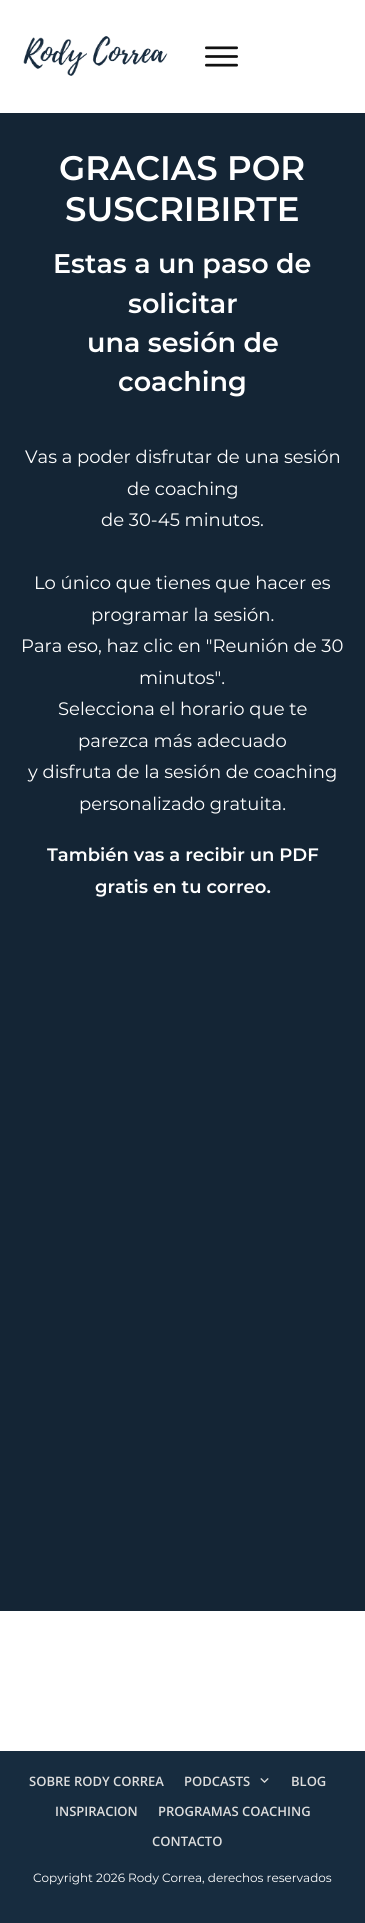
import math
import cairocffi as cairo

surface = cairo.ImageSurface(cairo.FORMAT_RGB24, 365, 1923)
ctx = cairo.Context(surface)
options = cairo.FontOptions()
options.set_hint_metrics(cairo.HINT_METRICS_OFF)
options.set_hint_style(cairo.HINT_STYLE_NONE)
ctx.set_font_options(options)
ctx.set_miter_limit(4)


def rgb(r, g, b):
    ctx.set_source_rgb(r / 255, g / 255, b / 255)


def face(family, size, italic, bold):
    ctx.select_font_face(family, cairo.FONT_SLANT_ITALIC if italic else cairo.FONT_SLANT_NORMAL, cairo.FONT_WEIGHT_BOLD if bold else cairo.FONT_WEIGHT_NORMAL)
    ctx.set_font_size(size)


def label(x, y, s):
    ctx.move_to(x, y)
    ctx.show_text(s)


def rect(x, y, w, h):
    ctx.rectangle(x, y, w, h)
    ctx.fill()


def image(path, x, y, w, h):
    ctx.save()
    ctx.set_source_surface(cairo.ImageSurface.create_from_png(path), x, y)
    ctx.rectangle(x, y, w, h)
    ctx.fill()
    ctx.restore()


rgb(255, 255, 255)
ctx.paint()
image('image0.png', 23, 36, 145, 40)
image('image1.png', 205, 46, 33, 21)
rgb(20, 37, 53)
rect(0, 113, 365, 1498)
face('Montserrat SemiBold', 34, 0, 0)
rgb(255, 255, 255)
label(59, 180, 'GRACIAS POR')
label(65, 221, 'SUSCRIBIRTE')
face('Montserrat SemiBold', 27, 0, 0)
label(53, 273, 'Estas a un paso de')
label(128, 313, 'solicitar')
label(87, 352, 'una sesión de')
label(118, 391, 'coaching')
face('Montserrat', 18, 0, 0)
label(25, 463, 'Vas a poder disfrutar de una sesión')
label(127, 495, 'de coaching')
label(101, 526, 'de 30-45 minutos.')
label(34, 589, 'Lo único que tienes que hacer es')
label(91, 621, 'programar la sesión.')
label(21, 652, 'Para eso, haz clic en "Reunión de 30')
label(139, 684, 'minutos".')
label(58, 715, 'Selecciona el horario que te')
label(78, 747, 'parezca más adecuado')
label(28, 778, 'y disfruta de la sesión de coaching')
label(79, 810, 'personalizado gratuita.')
face('Montserrat SemiBold', 18, 0, 0)
label(47, 861, 'También vas a recibir un PDF')
label(95, 893, 'gratis en tu correo.')
rgb(23, 44, 63)
rect(0, 1751, 365, 172)
face('Open Sans SemiBold', 13, 0, 0)
rgb(222, 222, 222)
label(29, 1786, 'SOBRE RODY CORREA')
label(184, 1786, 'PODCASTS')
image('image2.png', 260, 1778, 9, 5)
label(291, 1786, 'BLOG')
label(55, 1816, 'INSPIRACION')
label(158, 1816, 'PROGRAMAS COACHING')
label(152, 1846, 'CONTACTO')
face('Montserrat', 12, 0, 0)
rgb(255, 255, 255)
label(33, 1882, 'Copyright 2026 Rody Correa, derechos reservados')
surface.write_to_png('render.png')
